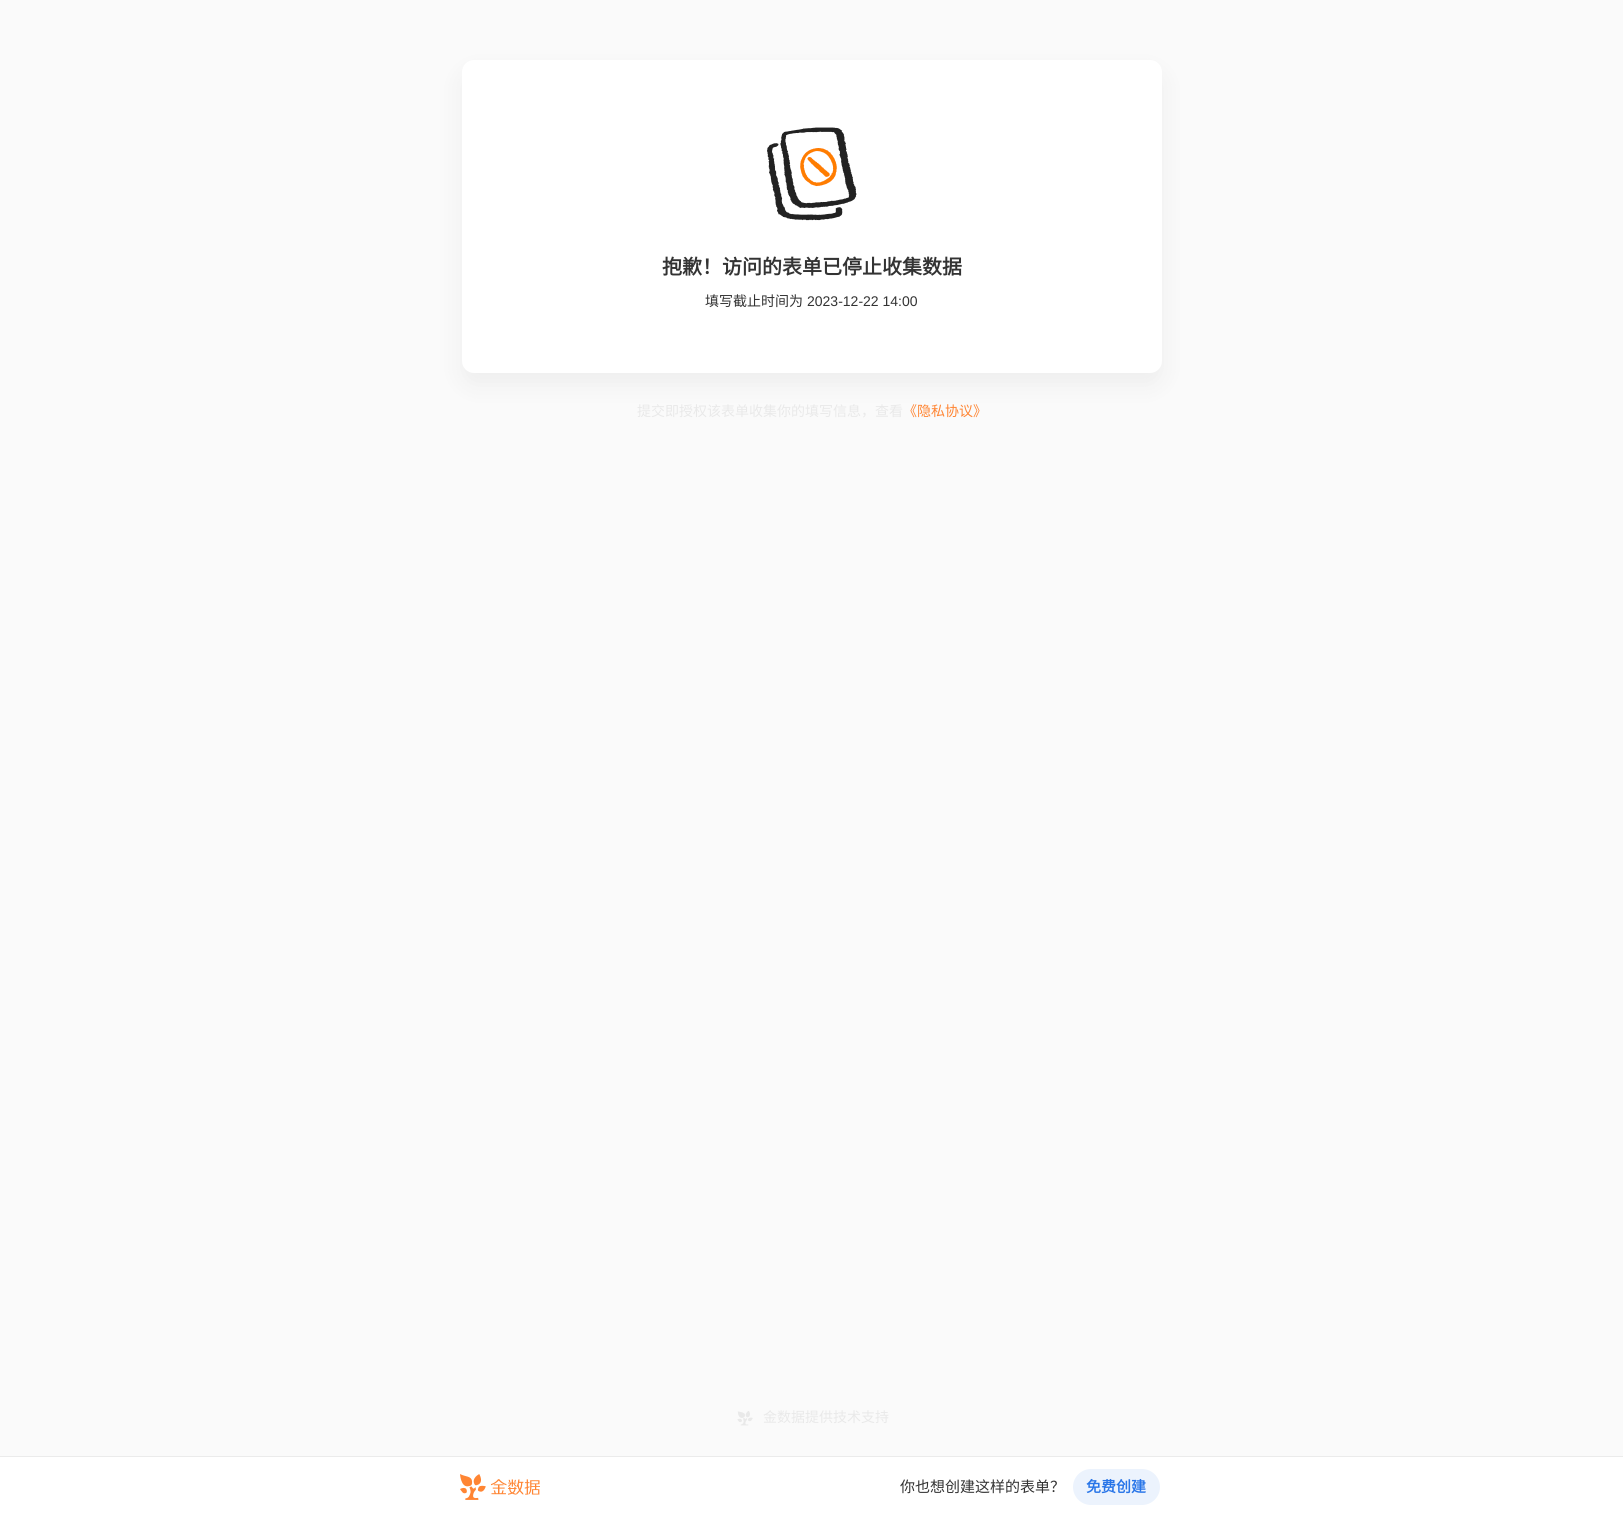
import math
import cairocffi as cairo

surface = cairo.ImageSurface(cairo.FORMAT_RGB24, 1623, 1517)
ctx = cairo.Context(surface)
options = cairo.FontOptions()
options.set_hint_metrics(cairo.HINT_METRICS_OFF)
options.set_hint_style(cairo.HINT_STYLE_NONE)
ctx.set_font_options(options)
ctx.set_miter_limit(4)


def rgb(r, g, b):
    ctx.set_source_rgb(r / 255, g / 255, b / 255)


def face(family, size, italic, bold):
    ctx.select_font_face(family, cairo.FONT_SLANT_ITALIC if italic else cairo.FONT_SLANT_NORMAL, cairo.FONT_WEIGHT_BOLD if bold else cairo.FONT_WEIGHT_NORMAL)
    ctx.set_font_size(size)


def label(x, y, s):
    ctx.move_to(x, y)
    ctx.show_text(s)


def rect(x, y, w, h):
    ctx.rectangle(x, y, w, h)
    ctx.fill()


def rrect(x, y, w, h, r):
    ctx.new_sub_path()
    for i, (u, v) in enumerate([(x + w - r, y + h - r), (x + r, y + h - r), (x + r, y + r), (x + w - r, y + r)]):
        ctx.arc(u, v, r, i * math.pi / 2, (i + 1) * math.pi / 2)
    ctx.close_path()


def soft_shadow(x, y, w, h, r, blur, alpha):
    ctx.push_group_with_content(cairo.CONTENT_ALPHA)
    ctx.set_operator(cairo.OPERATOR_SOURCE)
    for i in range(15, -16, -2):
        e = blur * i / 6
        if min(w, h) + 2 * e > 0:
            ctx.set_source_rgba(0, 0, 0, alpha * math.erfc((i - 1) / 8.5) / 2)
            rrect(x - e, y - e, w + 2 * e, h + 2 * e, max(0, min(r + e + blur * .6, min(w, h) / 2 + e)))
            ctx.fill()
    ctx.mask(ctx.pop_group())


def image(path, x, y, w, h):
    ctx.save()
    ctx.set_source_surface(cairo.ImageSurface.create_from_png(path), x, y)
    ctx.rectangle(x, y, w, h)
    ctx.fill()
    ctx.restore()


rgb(250, 250, 250)
ctx.paint()
rgb(0, 0, 0)
soft_shadow(462, 72, 700, 313, 12, 12, 0.05)
rgb(255, 255, 255)
rrect(462, 60, 700, 313, 12)
ctx.fill()
image('image0.png', 767, 127, 90, 94)
face('Noto Sans CJK SC', 20, 0, 1)
rgb(51, 51, 51)
label(662, 274, '抱歉！访问的表单已停止收集数据')
face('Noto Sans CJK SC', 14, 0, 0)
label(705, 306, '填写截止时间为')
face('Liberation Sans', 14, 0, 0)
label(807, 306, '2023-12-22 14:00')
face('Noto Sans CJK SC', 14, 0, 0)
rgb(233, 233, 233)
label(637, 416, '提交即授权该表单收集你的填写信息，查看')
rgb(255, 133, 51)
label(903, 416, '《隐私协议》')
image('image1.png', 737, 1411, 16, 15)
rgb(233, 233, 233)
label(763, 1422, '金数据提供技术支持')
rgb(255, 255, 255)
rect(0, 1457, 1623, 60)
rgb(235, 235, 235)
rect(0, 1456, 1623, 1)
image('image2.png', 460, 1474, 80, 26)
face('Noto Sans CJK SC', 15, 0, 0)
rgb(51, 51, 51)
label(900, 1492, '你也想创建这样的表单？')
rgb(236, 243, 253)
rrect(1073, 1469, 87, 36, 18)
ctx.fill()
face('Noto Sans CJK SC', 15, 0, 1)
rgb(40, 117, 232)
label(1086, 1492, '免费创建')
surface.write_to_png('render.png')
